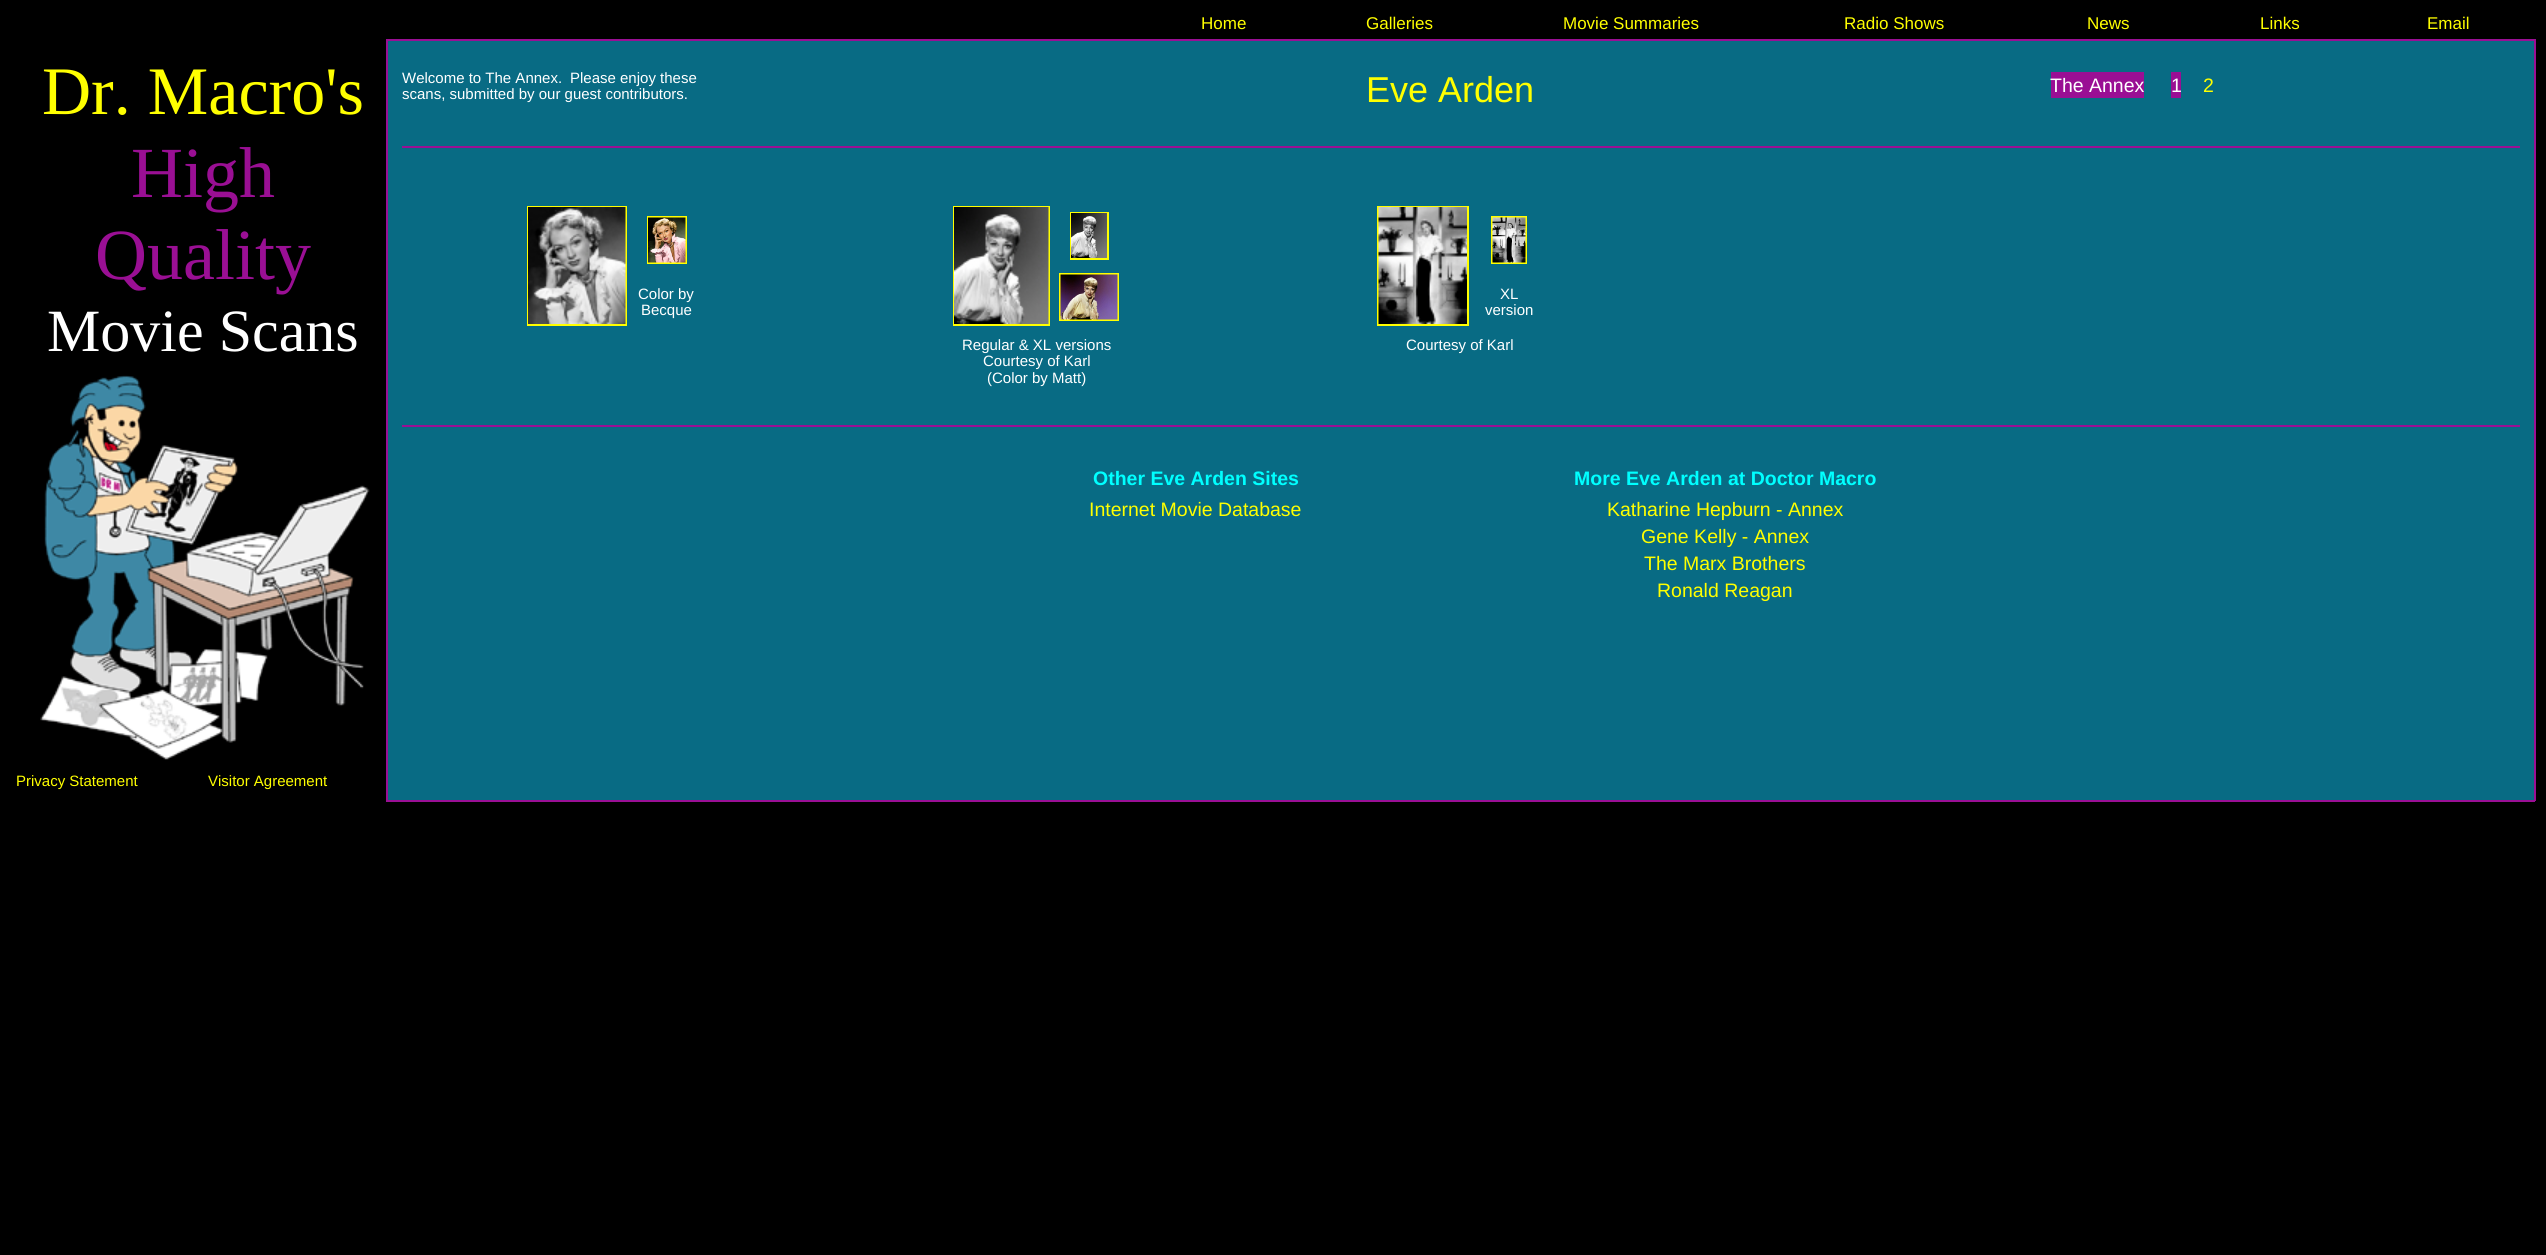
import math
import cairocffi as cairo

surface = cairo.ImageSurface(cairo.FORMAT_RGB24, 2546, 1255)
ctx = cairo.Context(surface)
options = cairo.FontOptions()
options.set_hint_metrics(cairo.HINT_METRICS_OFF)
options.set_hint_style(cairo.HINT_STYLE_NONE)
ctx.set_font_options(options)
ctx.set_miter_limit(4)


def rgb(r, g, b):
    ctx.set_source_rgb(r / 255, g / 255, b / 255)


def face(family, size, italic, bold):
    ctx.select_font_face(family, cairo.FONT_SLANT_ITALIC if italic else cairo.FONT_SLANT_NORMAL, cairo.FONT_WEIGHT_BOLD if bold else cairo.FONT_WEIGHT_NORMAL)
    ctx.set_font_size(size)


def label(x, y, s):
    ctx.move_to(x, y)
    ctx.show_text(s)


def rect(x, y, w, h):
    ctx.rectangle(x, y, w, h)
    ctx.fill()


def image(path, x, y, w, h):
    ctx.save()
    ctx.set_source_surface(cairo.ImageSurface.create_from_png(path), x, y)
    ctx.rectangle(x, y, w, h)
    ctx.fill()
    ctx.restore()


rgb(0, 0, 0)
ctx.paint()
face('Liberation Sans', 17, 0, 0)
rgb(255, 255, 0)
label(1201, 29, 'Home')
label(1366, 29, 'Galleries')
label(1563, 29, 'Movie Summaries')
label(1844, 29, 'Radio Shows')
label(2087, 29, 'News')
label(2260, 29, 'Links')
label(2427, 29, 'Email')
face('Liberation Serif', 68, 0, 0)
label(42, 114, 'Dr. Macro\'s')
face('Liberation Serif', 72, 0, 0)
rgb(154, 15, 148)
label(131, 197, 'High')
label(95, 279, 'Quality')
face('Liberation Serif', 60, 0, 0)
rgb(255, 255, 255)
label(47, 351, 'Movie Scans')
image('image0.png', 40, 375, 330, 385)
face('Liberation Sans', 15, 0, 0)
rgb(255, 255, 0)
label(16, 786, 'Privacy Statement')
label(208, 786, 'Visitor Agreement')
rgb(154, 15, 148)
rect(386, 39, 2149, 2)
rect(2534, 39, 2, 762)
rect(386, 800, 2149, 2)
rect(386, 39, 2, 762)
rgb(8, 107, 132)
rect(388, 41, 2146, 759)
rgb(255, 255, 255)
label(402, 83, 'Welcome to The Annex.')
label(570, 83, 'Please enjoy these')
label(402, 99, 'scans, submitted by our guest contributors.')
face('Liberation Sans', 36, 0, 0)
rgb(255, 255, 0)
label(1366, 102, 'Eve Arden')
rgb(154, 15, 148)
rect(2051, 72, 93, 26)
face('Liberation Sans', 19.5, 0, 0)
rgb(255, 255, 255)
label(2050, 92, 'The Annex')
rgb(154, 15, 148)
rect(2171, 72, 10, 26)
rgb(255, 255, 255)
label(2171, 92, '1')
rgb(255, 255, 0)
label(2203, 92, '2')
rgb(154, 15, 148)
rect(402, 146, 2118, 2)
ctx.rectangle(528, 207, 98, 118)
rgb(255, 255, 0)
ctx.stroke()
image('image1.png', 528, 207, 98, 117)
ctx.rectangle(648, 217, 38, 46)
ctx.stroke()
image('image2.png', 648, 217, 38, 46)
face('Liberation Sans', 15, 0, 0)
rgb(255, 255, 255)
label(638, 299, 'Color by')
label(641, 315, 'Becque')
ctx.rectangle(954, 207, 95, 118)
rgb(255, 255, 0)
ctx.stroke()
image('image3.png', 954, 207, 95, 117)
ctx.rectangle(1071, 213, 37, 46)
ctx.stroke()
image('image4.png', 1071, 213, 36, 45)
ctx.rectangle(1060, 274, 58, 46)
ctx.stroke()
image('image5.png', 1060, 274, 58, 46)
ctx.rectangle(1378, 207, 90, 118)
ctx.stroke()
image('image6.png', 1378, 207, 89, 117)
ctx.rectangle(1492, 217, 34, 46)
ctx.stroke()
image('image7.png', 1492, 217, 34, 46)
rgb(255, 255, 255)
label(1500, 299, 'XL')
label(1485, 315, 'version')
label(962, 350, 'Regular & XL versions')
label(983, 366, 'Courtesy of Karl')
label(987, 383, '(Color by Matt)')
label(1406, 350, 'Courtesy of Karl')
rgb(154, 15, 148)
rect(402, 425, 2118, 2)
face('Liberation Sans', 19.5, 0, 1)
rgb(0, 255, 255)
label(1093, 485, 'Other Eve Arden Sites')
face('Liberation Sans', 19.5, 0, 0)
rgb(255, 255, 0)
label(1089, 516, 'Internet Movie Database')
face('Liberation Sans', 19.5, 0, 1)
rgb(0, 255, 255)
label(1574, 485, 'More Eve Arden at Doctor Macro')
face('Liberation Sans', 19.5, 0, 0)
rgb(255, 255, 0)
label(1607, 516, 'Katharine Hepburn - Annex')
label(1641, 543, 'Gene Kelly - Annex')
label(1644, 570, 'The Marx Brothers')
label(1657, 597, 'Ronald Reagan')
surface.write_to_png('render.png')
